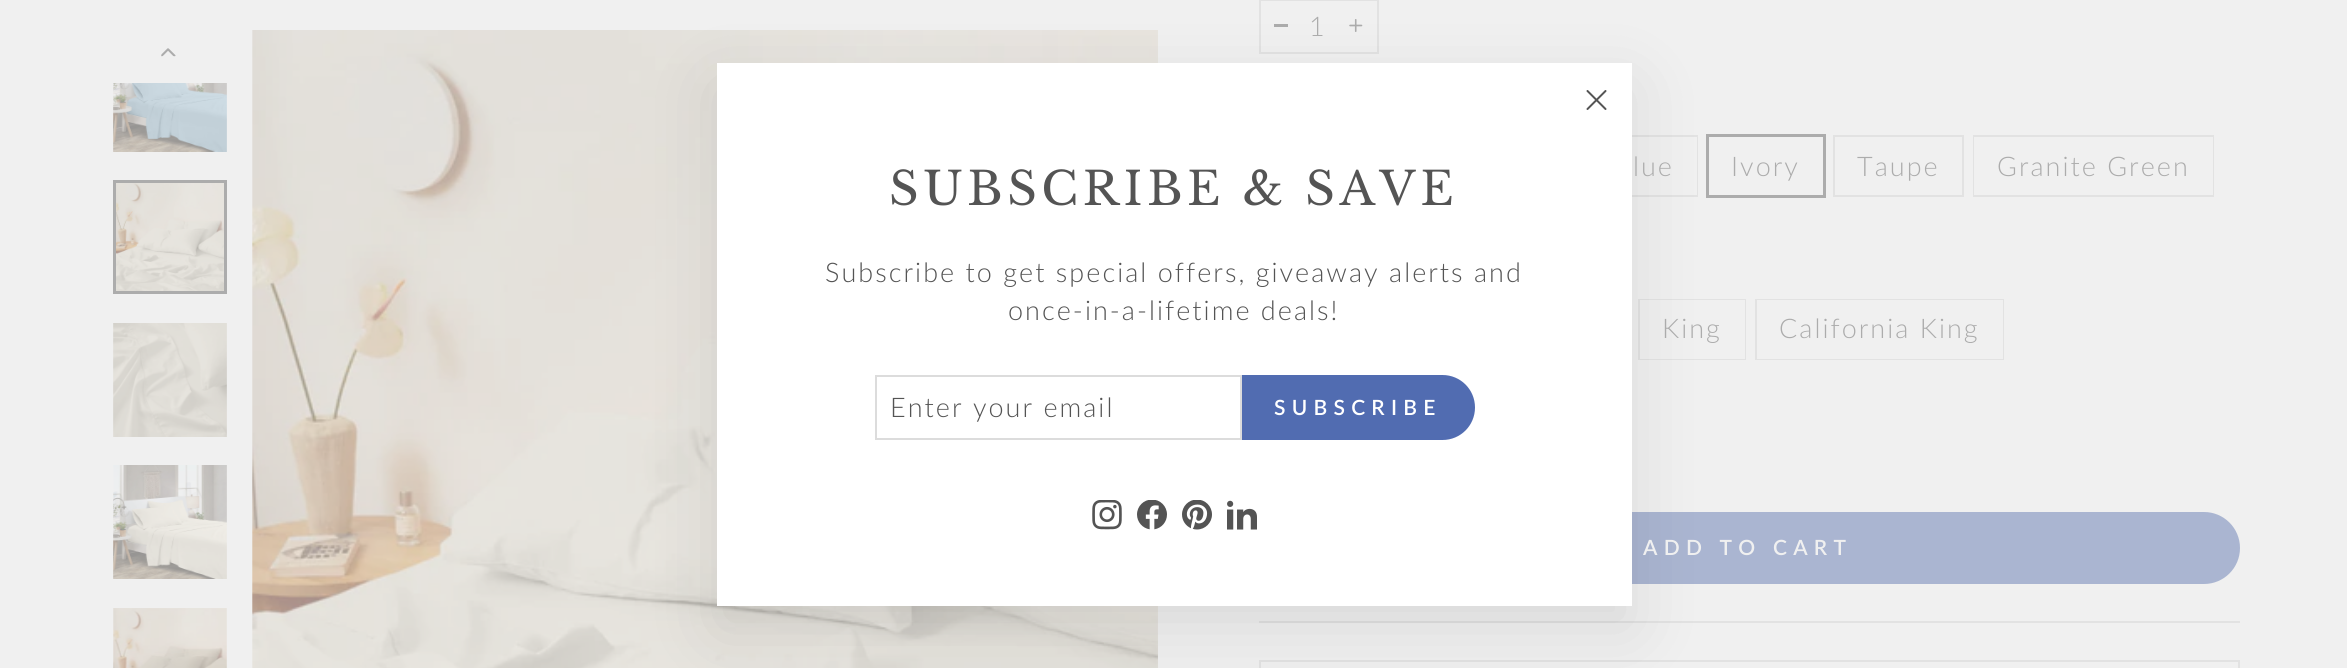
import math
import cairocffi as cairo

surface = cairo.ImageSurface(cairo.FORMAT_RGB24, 2347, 668)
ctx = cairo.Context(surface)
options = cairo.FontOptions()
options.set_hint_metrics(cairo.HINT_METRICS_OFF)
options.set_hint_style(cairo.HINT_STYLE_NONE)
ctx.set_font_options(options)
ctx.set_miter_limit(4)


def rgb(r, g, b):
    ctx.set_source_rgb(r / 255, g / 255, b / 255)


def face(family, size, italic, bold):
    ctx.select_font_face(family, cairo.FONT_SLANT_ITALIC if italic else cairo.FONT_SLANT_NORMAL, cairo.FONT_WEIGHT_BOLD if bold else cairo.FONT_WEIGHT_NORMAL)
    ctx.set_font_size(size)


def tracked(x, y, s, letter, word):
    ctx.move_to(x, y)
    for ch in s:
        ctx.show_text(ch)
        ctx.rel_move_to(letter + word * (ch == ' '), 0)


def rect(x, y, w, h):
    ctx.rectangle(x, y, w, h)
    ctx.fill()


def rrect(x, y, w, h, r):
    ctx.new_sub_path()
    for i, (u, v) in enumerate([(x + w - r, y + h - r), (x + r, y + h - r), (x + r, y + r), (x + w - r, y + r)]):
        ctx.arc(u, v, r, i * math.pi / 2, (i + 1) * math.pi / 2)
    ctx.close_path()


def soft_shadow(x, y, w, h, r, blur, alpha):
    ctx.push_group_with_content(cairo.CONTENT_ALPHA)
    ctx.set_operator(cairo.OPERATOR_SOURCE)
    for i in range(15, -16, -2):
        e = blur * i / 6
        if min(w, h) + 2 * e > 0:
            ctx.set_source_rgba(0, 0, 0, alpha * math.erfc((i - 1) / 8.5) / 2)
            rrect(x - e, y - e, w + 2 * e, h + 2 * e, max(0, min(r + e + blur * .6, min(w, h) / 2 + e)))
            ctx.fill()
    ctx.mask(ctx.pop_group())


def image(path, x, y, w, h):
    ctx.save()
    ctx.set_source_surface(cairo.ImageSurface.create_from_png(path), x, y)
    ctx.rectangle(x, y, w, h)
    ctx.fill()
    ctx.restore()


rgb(240, 240, 240)
ctx.paint()
image('image10.png', 252, 30, 906, 638)
ctx.rectangle(1260, 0, 118, 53)
rgb(226, 226, 226)
ctx.stroke()
rgb(172, 172, 172)
rect(1274, 24, 14, 3)
image('image11.png', 1349, 19, 14, 13)
ctx.rectangle(1536, 136, 161, 60)
rgb(226, 226, 226)
ctx.stroke()
rgb(240, 240, 240)
rect(1696, 137, 1, 58)
ctx.rectangle(1707.5, 135.5, 117, 61)
rgb(172, 172, 172)
ctx.set_line_width(3)
ctx.stroke()
ctx.rectangle(1639, 300, 106, 59)
rgb(226, 226, 226)
ctx.set_line_width(2)
ctx.stroke()
rgb(240, 240, 240)
rect(1640, 300, 105, 59)
rgb(170, 181, 209)
rrect(1259, 512, 981, 72, 36)
ctx.fill()
rgb(226, 226, 226)
rect(1259, 621, 981, 2)
rect(1259, 660, 981, 2)
rect(1259, 660, 2, 8)
rgb(0, 0, 0)
soft_shadow(717, 86, 915, 543, 0, 34, 0.1)
rgb(255, 255, 255)
rect(717, 63, 915, 543)
ctx.new_path()
ctx.move_to(1587.5, 91)
ctx.line_to(1605.5, 109)
ctx.move_to(1605.5, 91)
ctx.line_to(1587.5, 109)
rgb(84, 84, 84)
ctx.set_line_cap(cairo.LINE_CAP_ROUND)
ctx.set_line_join(cairo.LINE_JOIN_ROUND)
ctx.stroke()
face('Libre Baskerville', 45.9, 0, 0)
tracked(889, 205, 'SUBSCRIBE & SAVE', 4.6, 0)
face('Lato Light', 27, 0, 0)
tracked(825, 282, 'Subscribe to get special offers, giveaway alerts and', 2.03, 0)
tracked(1008, 320, 'once-in-a-lifetime deals!', 2.03, 0)
ctx.rectangle(876, 376, 365, 63)
rgb(220, 220, 220)
ctx.set_line_cap(cairo.LINE_CAP_BUTT)
ctx.set_line_join(cairo.LINE_JOIN_MITER)
ctx.stroke()
rgb(84, 84, 84)
tracked(890, 417, 'Enter your email', 2.03, 0)
rgb(81, 108, 177)
ctx.new_path()
ctx.move_to(1242, 375)
ctx.line_to(1442.5, 375)
ctx.curve_to(1460.5, 375, 1475, 389.5, 1475, 407.5)
ctx.curve_to(1475, 425.5, 1460.5, 440, 1442.5, 440)
ctx.line_to(1242, 440)
ctx.close_path()
ctx.fill()
face('Lato SemiBold', 21, 0, 0)
rgb(255, 255, 255)
tracked(1274, 415, 'SUBSCRIBE', 6.25, 0)
image('image0.png', 1092, 500, 30, 30)
image('image1.png', 1137, 500, 30, 30)
image('image2.png', 1182, 500, 30, 30)
image('image3.png', 1227, 500, 30, 30)
image('image4.png', 161, 48, 15, 9)
image('image5.png', 113, 83, 114, 69)
image('image6.png', 116, 183, 108, 108)
ctx.rectangle(114.5, 181.5, 111, 111)
rgb(172, 172, 172)
ctx.set_line_width(3)
ctx.stroke()
image('image7.png', 113, 323, 114, 114)
image('image8.png', 113, 465, 114, 114)
image('image9.png', 113, 608, 114, 60)
face('Lato Light', 27, 0, 0)
tracked(1309, 36, '1', 2.03, 0)
tracked(1633, 176, 'lue', 2.03, 0)
tracked(1731, 176, 'Ivory', 2.03, 0)
ctx.rectangle(1834, 136, 129, 60)
rgb(226, 226, 226)
ctx.set_line_width(2)
ctx.stroke()
rgb(172, 172, 172)
tracked(1857, 176, 'Taupe', 2.03, 0)
ctx.rectangle(1974, 136, 239, 60)
rgb(226, 226, 226)
ctx.stroke()
rgb(240, 240, 240)
rect(1974, 137, 239, 58)
rgb(172, 172, 172)
tracked(1997, 176, 'Granite Green', 2.03, 0)
tracked(1662, 338, 'King', 2.03, 0)
ctx.rectangle(1756, 300, 247, 59)
rgb(226, 226, 226)
ctx.stroke()
rgb(240, 240, 240)
rect(1757, 300, 246, 59)
rgb(172, 172, 172)
tracked(1779, 338, 'California King', 2.03, 0)
face('Lato SemiBold', 21, 0, 0)
rgb(240, 240, 240)
tracked(1643, 555, 'ADD TO CART', 6.25, 0)
rgb(226, 226, 226)
rect(2238, 660, 2, 8)
surface.write_to_png('render.png')
